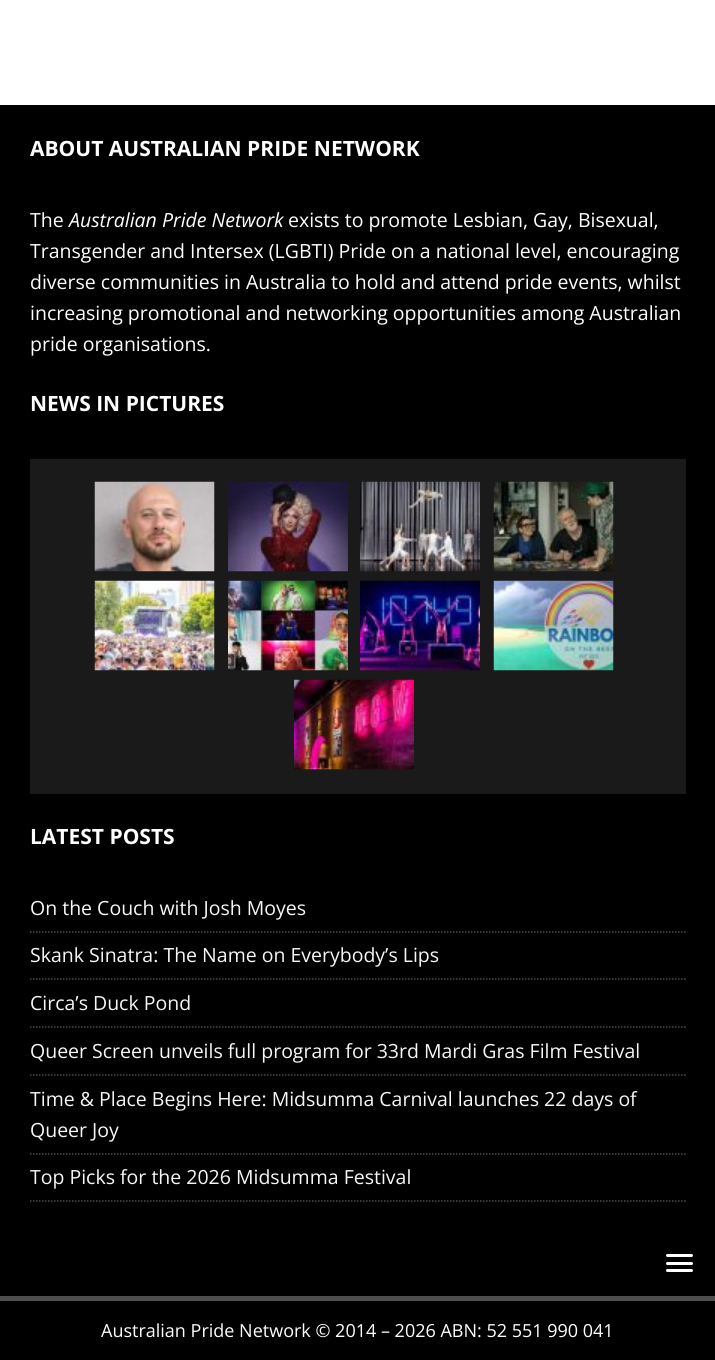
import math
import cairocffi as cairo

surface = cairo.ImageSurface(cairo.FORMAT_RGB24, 715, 1360)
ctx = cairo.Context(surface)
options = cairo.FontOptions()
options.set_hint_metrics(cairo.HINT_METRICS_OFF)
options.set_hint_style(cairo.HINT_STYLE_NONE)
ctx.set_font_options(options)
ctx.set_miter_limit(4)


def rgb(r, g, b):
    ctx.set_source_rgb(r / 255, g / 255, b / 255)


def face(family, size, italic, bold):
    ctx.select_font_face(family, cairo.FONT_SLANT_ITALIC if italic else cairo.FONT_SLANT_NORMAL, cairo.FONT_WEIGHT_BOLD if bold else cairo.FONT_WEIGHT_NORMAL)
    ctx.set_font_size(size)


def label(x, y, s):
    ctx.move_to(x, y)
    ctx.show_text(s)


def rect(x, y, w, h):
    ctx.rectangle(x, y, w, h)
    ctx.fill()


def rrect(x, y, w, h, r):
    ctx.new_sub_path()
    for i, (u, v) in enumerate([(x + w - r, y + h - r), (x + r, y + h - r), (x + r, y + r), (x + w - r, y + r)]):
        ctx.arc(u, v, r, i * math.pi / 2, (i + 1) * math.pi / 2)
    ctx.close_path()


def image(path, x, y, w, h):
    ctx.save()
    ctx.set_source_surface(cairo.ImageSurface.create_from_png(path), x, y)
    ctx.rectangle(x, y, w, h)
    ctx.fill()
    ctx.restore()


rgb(255, 255, 255)
ctx.paint()
rgb(0, 0, 0)
rect(0, 105, 715, 1191)
face('Open Sans', 21, 0, 1)
rgb(255, 255, 255)
label(30, 156, 'ABOUT AUSTRALIAN PRIDE NETWORK')
face('Open Sans', 19.5, 0, 0)
label(30, 227, 'The')
face('Open Sans', 19.5, 1, 0)
label(69, 227, 'Australian Pride Network')
face('Open Sans', 19.5, 0, 0)
label(288, 227, 'exists to promote Lesbian, Gay, Bisexual,')
label(30, 258, 'Transgender and Intersex (LGBTI) Pride on a national level, encouraging')
label(30, 289, 'diverse communities in Australia to hold and attend pride events, whilst')
label(30, 320, 'increasing promotional and networking opportunities among Australian')
label(30, 351, 'pride organisations.')
face('Open Sans', 21, 0, 1)
label(30, 411, 'NEWS IN PICTURES')
rgb(26, 26, 26)
rect(30, 459, 656, 335)
image('image0.png', 94, 481, 121, 91)
image('image1.png', 228, 481, 120, 91)
image('image2.png', 360, 481, 120, 91)
image('image3.png', 493, 481, 121, 91)
image('image4.png', 94, 580, 121, 91)
image('image5.png', 228, 580, 120, 91)
image('image6.png', 360, 580, 120, 91)
image('image7.png', 493, 580, 121, 91)
image('image8.png', 294, 679, 120, 91)
rgb(255, 255, 255)
label(30, 844, 'LATEST POSTS')
ctx.new_path()
ctx.move_to(30, 932)
ctx.line_to(685.5, 932)
rgb(77, 77, 77)
ctx.set_line_width(1.5)
ctx.set_dash([1.5, 1.5])
ctx.stroke()
face('Open Sans', 19.5, 0, 0)
rgb(247, 247, 247)
label(30, 915, 'On the Couch with Josh Moyes')
ctx.new_path()
ctx.move_to(30, 979)
ctx.line_to(685.5, 979)
rgb(77, 77, 77)
ctx.stroke()
rgb(247, 247, 247)
label(30, 962, 'Skank Sinatra: The Name on Everybody’s Lips')
ctx.new_path()
ctx.move_to(30, 1027)
ctx.line_to(685.5, 1027)
rgb(77, 77, 77)
ctx.stroke()
rgb(247, 247, 247)
label(30, 1010, 'Circa’s Duck Pond')
ctx.new_path()
ctx.move_to(30, 1075)
ctx.line_to(685.5, 1075)
rgb(77, 77, 77)
ctx.stroke()
rgb(247, 247, 247)
label(30, 1058, 'Queer Screen unveils full program for 33rd Mardi Gras Film Festival')
ctx.new_path()
ctx.move_to(30, 1154)
ctx.line_to(685.5, 1154)
rgb(77, 77, 77)
ctx.stroke()
rgb(247, 247, 247)
label(30, 1106, 'Time & Place Begins Here: Midsumma Carnival launches 22 days of')
label(30, 1137, 'Queer Joy')
ctx.new_path()
ctx.move_to(30, 1201)
ctx.line_to(685.5, 1201)
rgb(77, 77, 77)
ctx.stroke()
rgb(247, 247, 247)
label(30, 1184, 'Top Picks for the 2026 Midsumma Festival')
rgb(255, 255, 255)
rrect(666, 1254, 27, 3, 1.5)
ctx.fill()
rrect(666, 1262, 27, 3, 1.5)
ctx.fill()
rrect(666, 1269, 27, 3, 1.5)
ctx.fill()
rgb(0, 0, 0)
rect(0, 1301, 715, 59)
rgb(77, 77, 77)
rect(0, 1296, 715, 5)
face('Open Sans', 18, 0, 0)
rgb(255, 255, 255)
label(101, 1337, 'Australian Pride Network © 2014 – 2026 ABN: 52 551 990 041')
surface.write_to_png('render.png')
